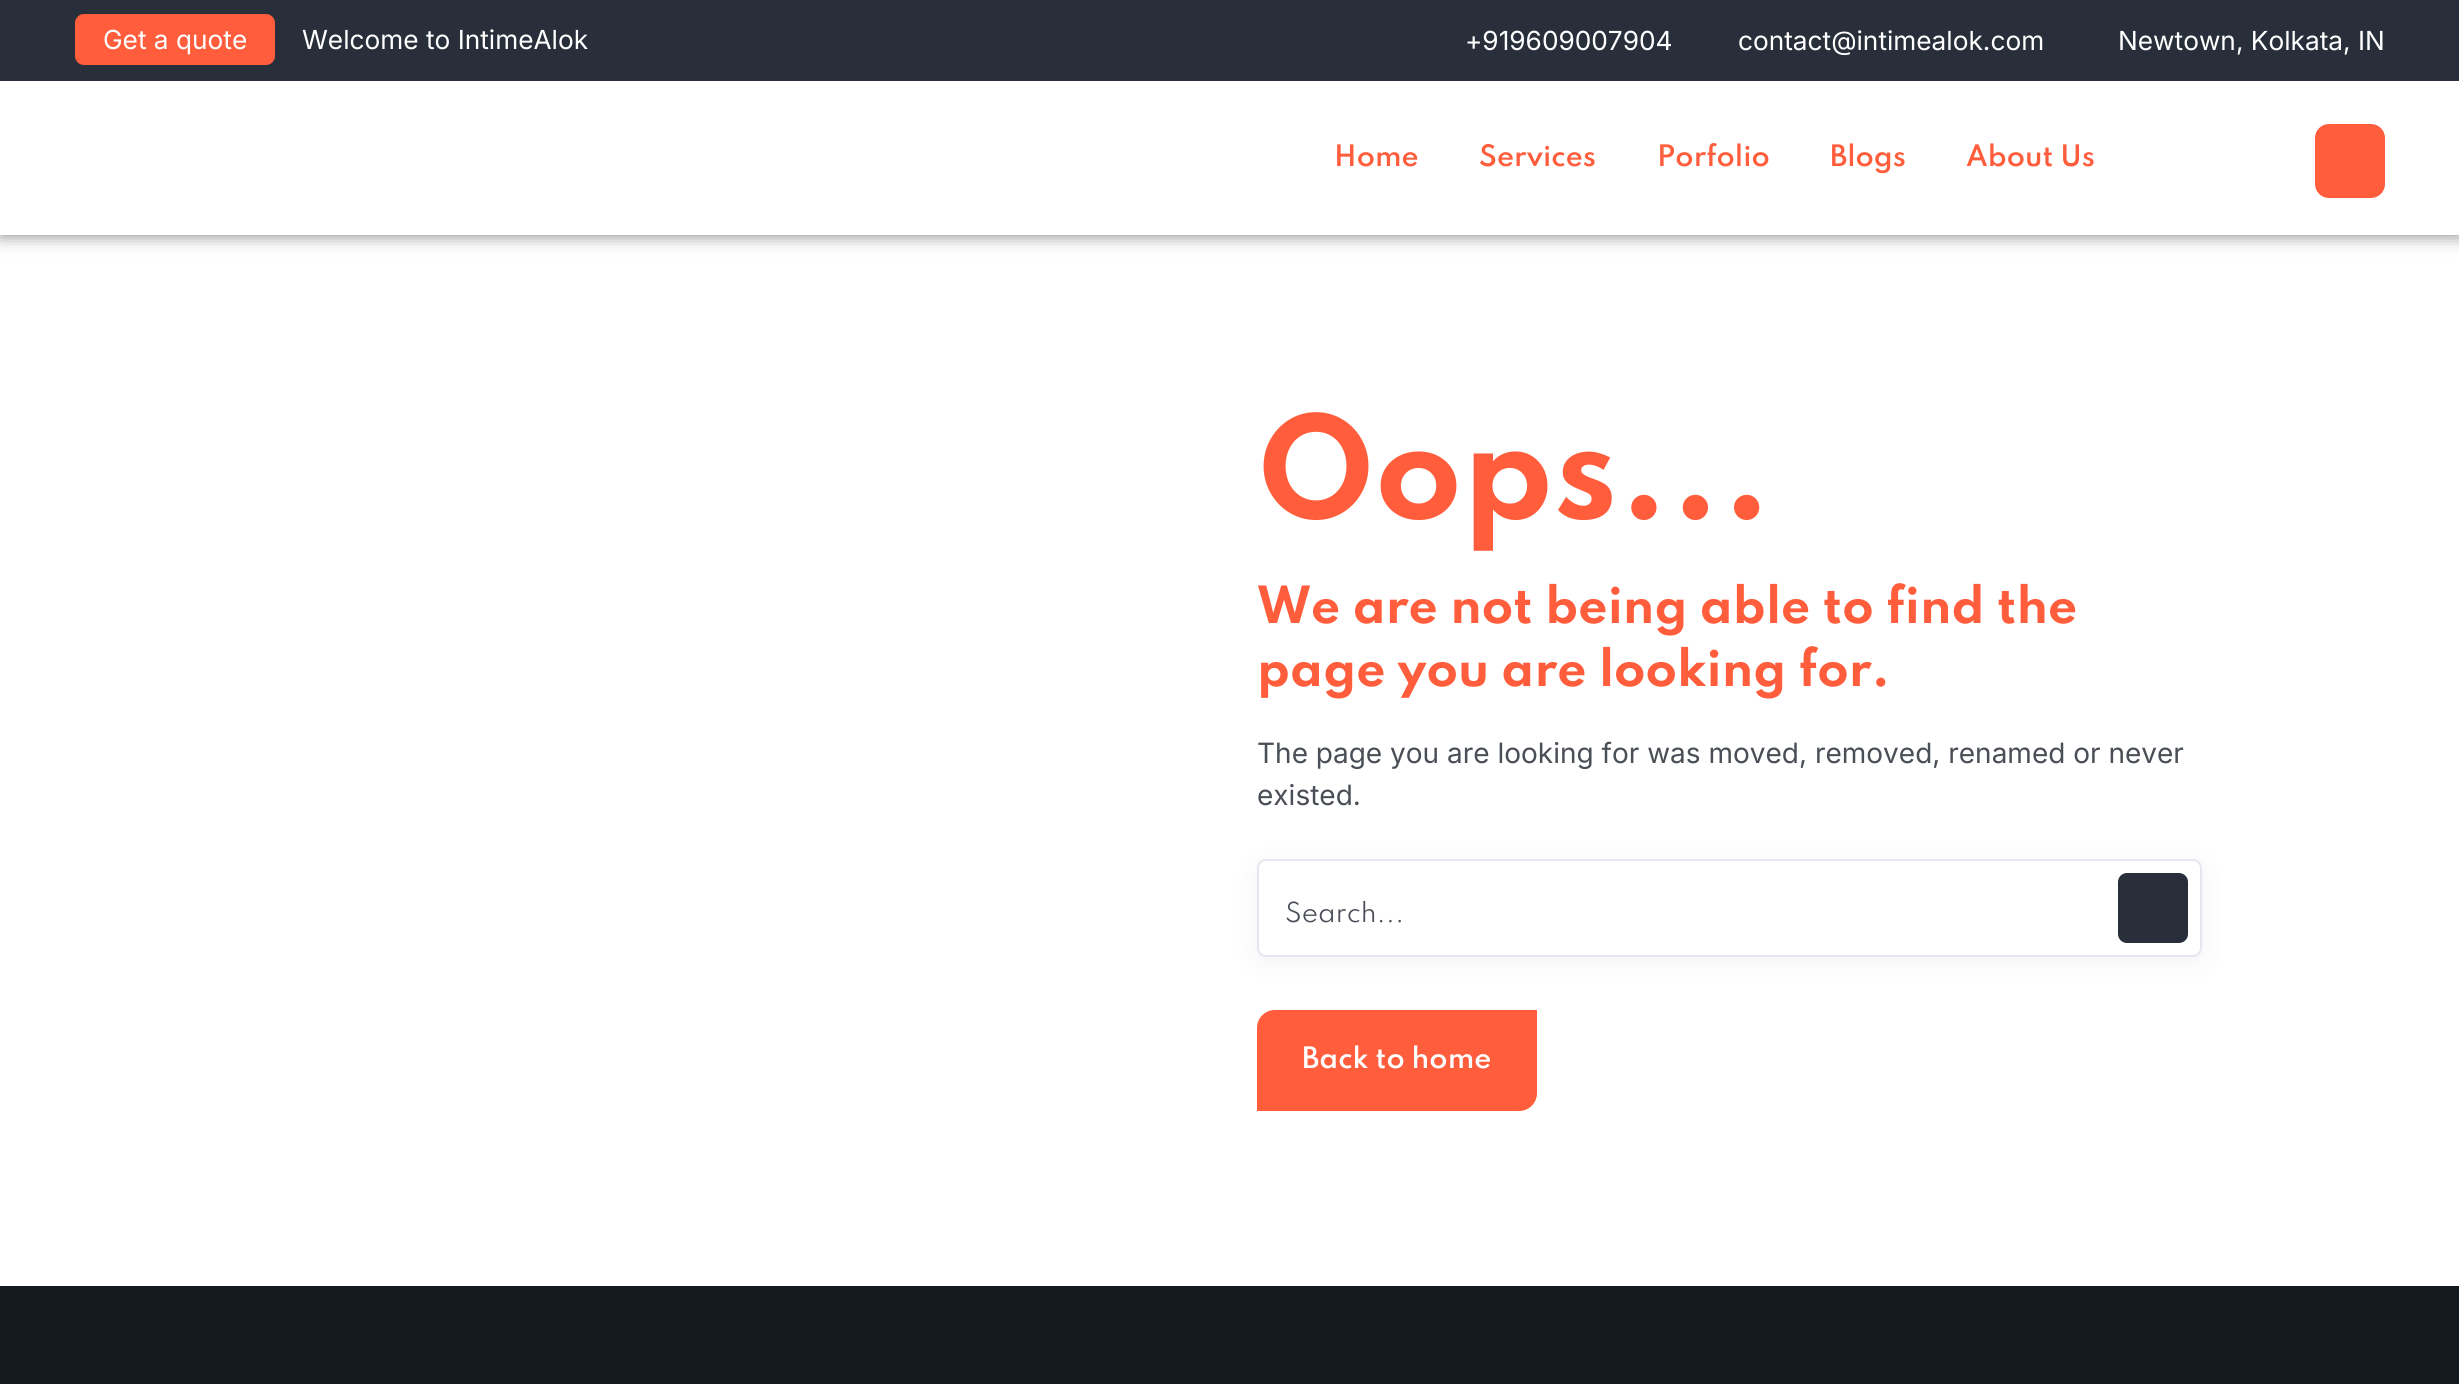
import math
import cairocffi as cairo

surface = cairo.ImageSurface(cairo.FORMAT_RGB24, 2459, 1384)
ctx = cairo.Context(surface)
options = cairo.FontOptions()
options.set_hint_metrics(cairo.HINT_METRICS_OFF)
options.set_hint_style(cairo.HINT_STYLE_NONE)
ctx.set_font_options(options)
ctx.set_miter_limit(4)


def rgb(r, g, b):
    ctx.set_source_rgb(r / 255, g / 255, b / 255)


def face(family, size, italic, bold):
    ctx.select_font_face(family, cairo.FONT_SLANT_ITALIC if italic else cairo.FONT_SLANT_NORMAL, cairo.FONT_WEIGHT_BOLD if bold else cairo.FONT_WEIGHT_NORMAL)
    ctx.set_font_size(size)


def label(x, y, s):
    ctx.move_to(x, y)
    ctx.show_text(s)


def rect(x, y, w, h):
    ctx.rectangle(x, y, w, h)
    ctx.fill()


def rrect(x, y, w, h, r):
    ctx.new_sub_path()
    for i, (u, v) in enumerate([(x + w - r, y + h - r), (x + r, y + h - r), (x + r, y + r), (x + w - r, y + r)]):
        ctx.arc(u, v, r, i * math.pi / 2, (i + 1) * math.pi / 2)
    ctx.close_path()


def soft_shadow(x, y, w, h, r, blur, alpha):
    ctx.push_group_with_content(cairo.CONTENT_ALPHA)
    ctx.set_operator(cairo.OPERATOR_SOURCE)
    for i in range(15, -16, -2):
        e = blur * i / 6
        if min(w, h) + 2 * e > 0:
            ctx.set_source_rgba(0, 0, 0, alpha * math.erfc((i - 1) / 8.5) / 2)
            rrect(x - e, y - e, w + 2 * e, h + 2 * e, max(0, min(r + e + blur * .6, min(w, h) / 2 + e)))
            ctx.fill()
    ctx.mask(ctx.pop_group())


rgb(255, 255, 255)
ctx.paint()
rgb(0, 0, 0)
soft_shadow(0, 0, 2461, 235, 0, 9, 0.5)
rgb(255, 255, 255)
rect(0, 81, 2459, 154)
rgb(40, 47, 59)
rect(0, 0, 2459, 81)
rgb(255, 93, 60)
rrect(75, 14, 200, 51, 9)
ctx.fill()
face('Inter', 26.25, 0, 0)
rgb(255, 255, 255)
label(103, 49, 'Get a quote')
label(302, 49, 'Welcome to IntimeAlok')
label(1465, 50, '+919609007904')
label(1738, 50, 'contact@intimealok.com')
label(2118, 50, 'Newtown, Kolkata, IN')
face('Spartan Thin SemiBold', 26.25, 0, 0)
rgb(255, 93, 60)
label(1334, 166, 'Home')
label(1479, 166, 'Services')
label(1657, 166, 'Porfolio')
label(1830, 166, 'Blogs')
label(1966, 166, 'About Us')
rrect(2315, 124, 70, 74, 14)
ctx.fill()
face('Spartan Thin', 126, 0, 1)
label(1257, 518, 'Oops...')
face('Spartan Thin', 45.5, 0, 1)
label(1257, 623, 'We are not being able to find the')
label(1257, 686, 'page you are looking for.')
face('Inter', 28, 0, 0)
rgb(74, 78, 86)
label(1257, 763, 'The page you are looking for was moved, removed, renamed or never')
label(1257, 805, 'existed.')
rgb(0, 0, 0)
soft_shadow(1257, 865, 945, 98, 9, 14, 0.05)
rgb(255, 255, 255)
rrect(1258, 860, 943, 96, 8)
ctx.fill_preserve()
rgb(228, 231, 238)
ctx.stroke()
face('Spartan Thin', 24.5, 0, 0)
rgb(74, 78, 86)
label(1285, 922, 'Search...')
rgb(40, 47, 59)
rrect(2118, 873, 70, 70, 9)
ctx.fill()
rgb(255, 93, 60)
ctx.new_path()
ctx.move_to(1275, 1011)
ctx.line_to(1536, 1011)
ctx.line_to(1536, 1093)
ctx.curve_to(1536, 1102.5, 1528.5, 1110, 1519, 1110)
ctx.line_to(1258, 1110)
ctx.line_to(1258, 1028)
ctx.curve_to(1258, 1018.5, 1265.5, 1011, 1275, 1011)
ctx.close_path()
ctx.fill_preserve()
ctx.stroke()
face('Spartan Thin SemiBold', 26.25, 0, 0)
rgb(255, 255, 255)
label(1302, 1068, 'Back to home')
rgb(20, 26, 32)
rect(0, 1286, 2459, 98)
surface.write_to_png('render.png')
